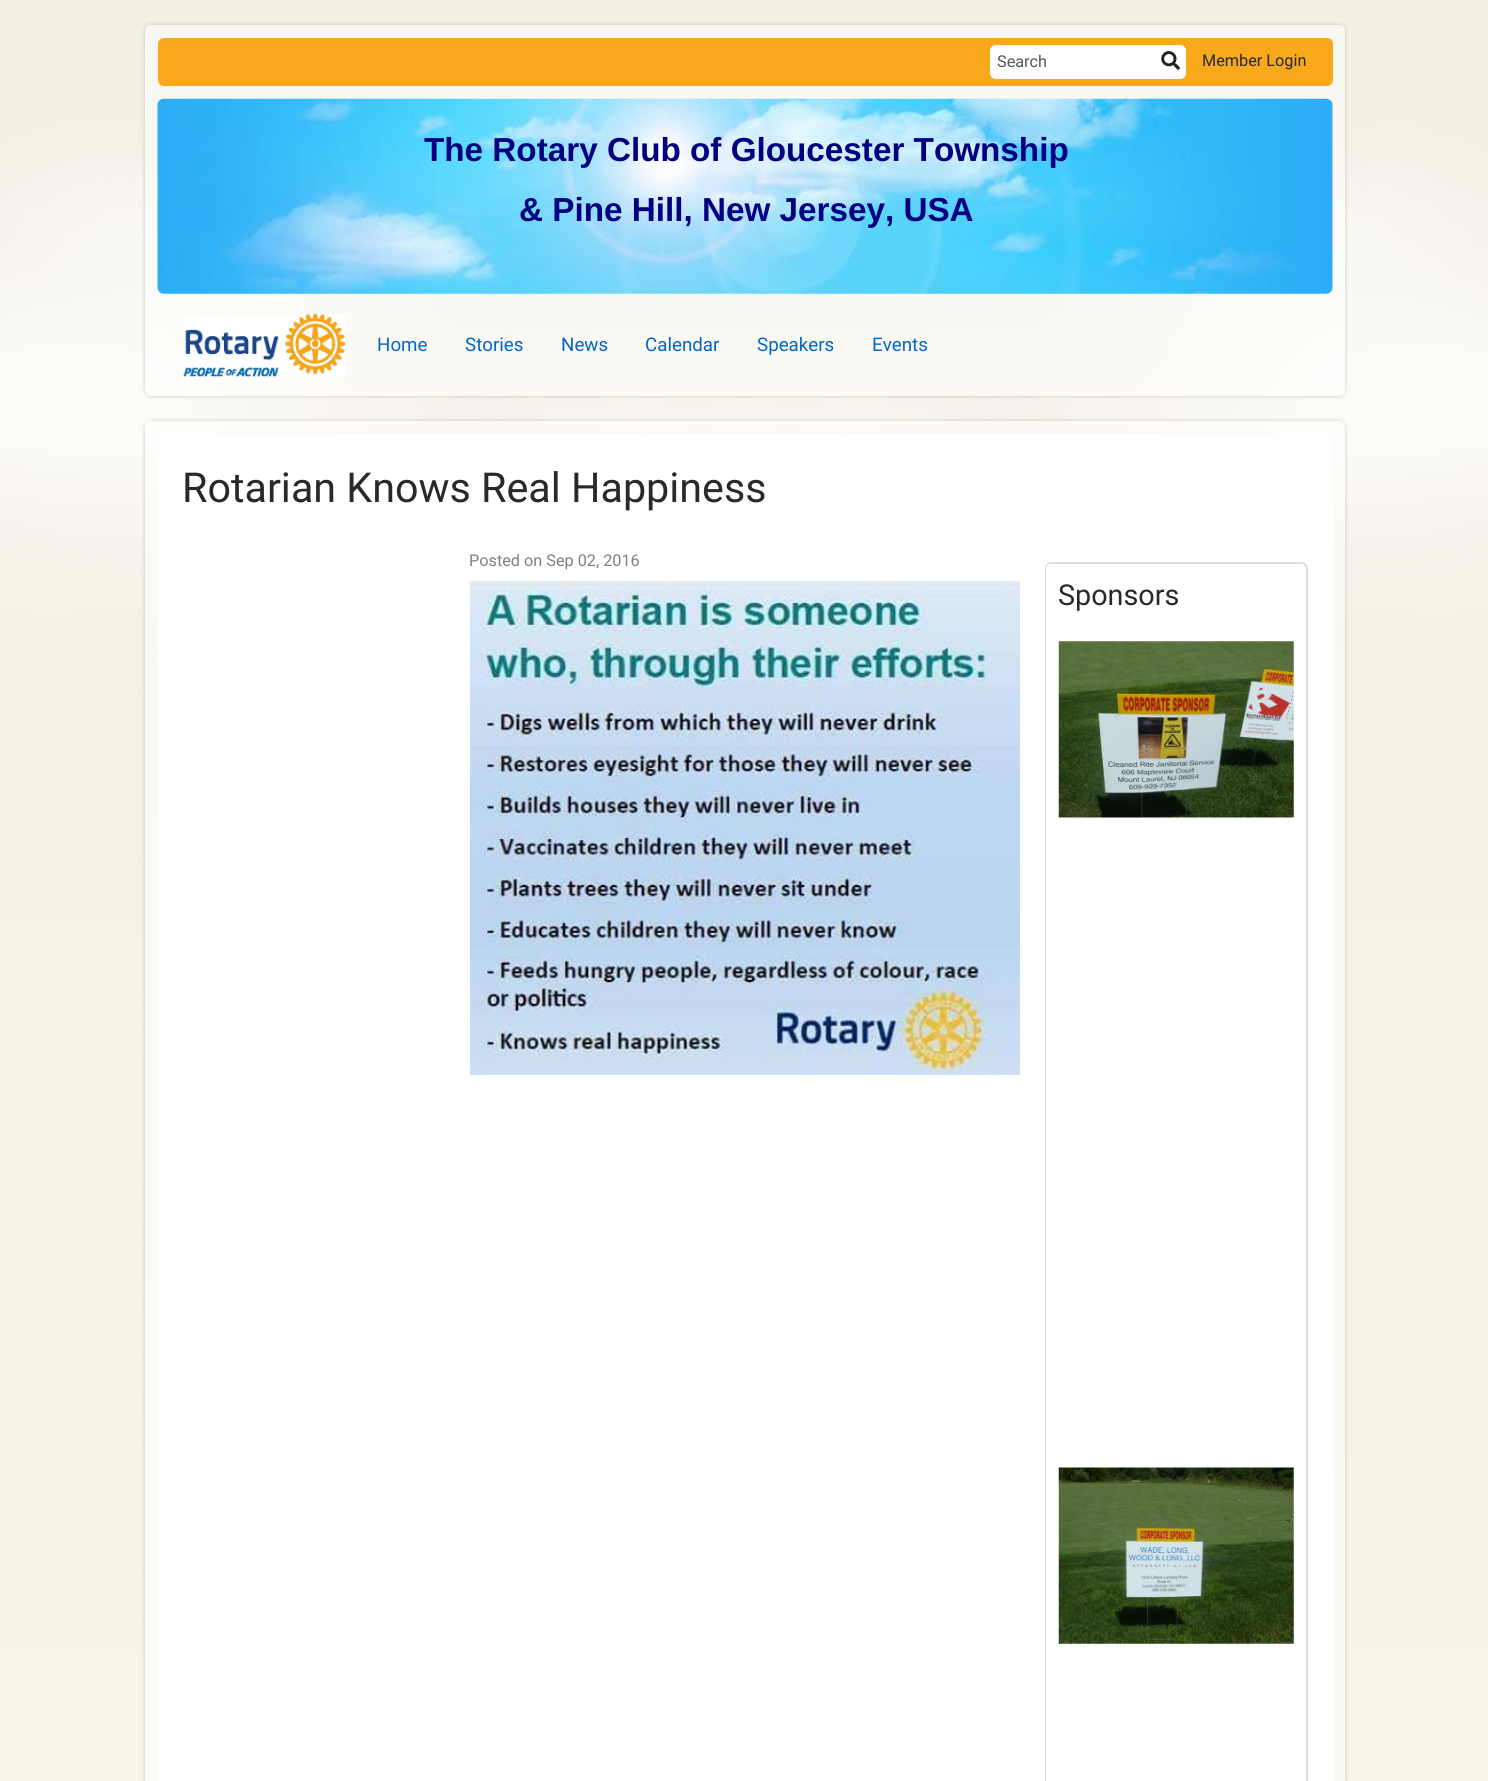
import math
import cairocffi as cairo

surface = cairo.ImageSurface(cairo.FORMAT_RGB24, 1488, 1781)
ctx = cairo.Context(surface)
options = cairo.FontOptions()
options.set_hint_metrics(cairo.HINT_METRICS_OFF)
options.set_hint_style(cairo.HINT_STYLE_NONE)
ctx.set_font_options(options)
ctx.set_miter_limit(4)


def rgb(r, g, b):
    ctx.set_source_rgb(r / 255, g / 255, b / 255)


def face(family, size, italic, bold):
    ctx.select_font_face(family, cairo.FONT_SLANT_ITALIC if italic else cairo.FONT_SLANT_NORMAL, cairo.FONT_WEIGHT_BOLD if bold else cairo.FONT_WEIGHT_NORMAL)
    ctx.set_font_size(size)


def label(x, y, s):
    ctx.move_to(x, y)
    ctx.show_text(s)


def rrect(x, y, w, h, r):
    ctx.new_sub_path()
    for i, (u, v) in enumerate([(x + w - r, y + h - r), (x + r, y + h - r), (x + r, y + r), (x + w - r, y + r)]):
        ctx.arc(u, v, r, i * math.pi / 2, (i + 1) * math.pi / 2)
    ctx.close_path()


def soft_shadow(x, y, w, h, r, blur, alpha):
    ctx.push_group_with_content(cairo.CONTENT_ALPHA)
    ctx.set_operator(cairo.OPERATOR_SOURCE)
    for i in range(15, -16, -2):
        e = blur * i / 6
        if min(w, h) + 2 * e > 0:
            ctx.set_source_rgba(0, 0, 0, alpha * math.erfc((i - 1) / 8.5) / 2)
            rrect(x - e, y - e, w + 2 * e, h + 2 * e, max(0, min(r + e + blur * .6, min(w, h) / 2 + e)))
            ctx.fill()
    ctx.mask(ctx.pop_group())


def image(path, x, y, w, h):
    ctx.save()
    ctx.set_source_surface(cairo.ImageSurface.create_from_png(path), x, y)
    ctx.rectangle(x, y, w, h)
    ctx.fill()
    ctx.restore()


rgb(255, 255, 255)
ctx.paint()
image('image0.png', 0, 0, 1488, 1781)
ctx.save()
ctx.set_fill_rule(cairo.FILL_RULE_EVEN_ODD)
ctx.new_path()
ctx.move_to(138, 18)
ctx.line_to(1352, 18)
ctx.line_to(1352, 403)
ctx.line_to(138, 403)
ctx.close_path()
ctx.move_to(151, 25)
ctx.line_to(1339, 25)
ctx.curve_to(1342.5, 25, 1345, 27.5, 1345, 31)
ctx.line_to(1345, 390)
ctx.curve_to(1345, 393.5, 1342.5, 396, 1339, 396)
ctx.line_to(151, 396)
ctx.curve_to(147.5, 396, 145, 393.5, 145, 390)
ctx.line_to(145, 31)
ctx.curve_to(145, 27.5, 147.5, 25, 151, 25)
ctx.close_path()
ctx.clip()
rgb(0, 0, 0)
soft_shadow(145, 25, 1200, 371, 6, 2, 0.2)
ctx.restore()
ctx.set_source_rgba(1, 1, 1, 0.5)
rrect(145, 25, 1200, 371, 6)
ctx.fill()
rgb(247, 168, 27)
rrect(158, 38, 1175, 48, 6)
ctx.fill()
rgb(255, 255, 255)
rrect(990, 45, 196, 34, 6)
ctx.fill()
face('Roboto', 16.25, 0, 0)
rgb(85, 85, 85)
label(997, 67, 'Search')
rgb(255, 255, 255)
rrect(1155, 45, 31, 34, 6)
ctx.fill()
image('image1.png', 1161, 51, 19, 19)
rgb(41, 41, 41)
label(1202, 66, 'Member Login')
image('image2.png', 157, 98, 1176, 196)
face('Liberation Sans', 33.25, 0, 1)
rgb(0, 0, 128)
label(424, 161, 'The Rotary Club of Gloucester Township')
label(519, 221, '& Pine Hill, New Jersey, USA')
image('image3.png', 183, 313, 162, 64)
face('Roboto', 18.75, 0, 0)
rgb(0, 103, 200)
label(377, 351, 'Home')
label(465, 351, 'Stories')
label(561, 351, 'News')
label(645, 351, 'Calendar')
label(757, 351, 'Speakers')
label(872, 351, 'Events')
ctx.save()
ctx.set_fill_rule(cairo.FILL_RULE_EVEN_ODD)
ctx.new_path()
ctx.move_to(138, 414)
ctx.line_to(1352, 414)
ctx.line_to(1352, 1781)
ctx.line_to(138, 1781)
ctx.close_path()
ctx.move_to(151, 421)
ctx.line_to(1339, 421)
ctx.curve_to(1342.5, 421, 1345, 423.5, 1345, 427)
ctx.line_to(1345, 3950)
ctx.curve_to(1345, 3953.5, 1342.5, 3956, 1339, 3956)
ctx.line_to(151, 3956)
ctx.curve_to(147.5, 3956, 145, 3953.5, 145, 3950)
ctx.line_to(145, 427)
ctx.curve_to(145, 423.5, 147.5, 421, 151, 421)
ctx.close_path()
ctx.clip()
rgb(0, 0, 0)
soft_shadow(145, 421, 1200, 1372, 6, 2, 0.2)
ctx.restore()
ctx.set_source_rgba(1, 1, 1, 0.5)
rrect(145, 421, 1200, 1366, 6)
ctx.fill()
rgb(255, 255, 255)
rrect(158, 434, 1175, 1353, 6)
ctx.fill()
face('Roboto', 41.25, 0, 0)
rgb(41, 41, 41)
label(182, 502, 'Rotarian Knows Real Happiness')
face('Roboto', 16.25, 0, 0)
rgb(128, 128, 128)
label(469, 566, 'Posted on Sep 02, 2016')
image('image4.png', 470, 580, 550, 495)
rgb(221, 221, 221)
ctx.set_fill_rule(cairo.FILL_RULE_EVEN_ODD)
ctx.new_path()
ctx.move_to(1051, 562)
ctx.line_to(1301, 562)
ctx.curve_to(1305, 562, 1308, 565, 1308, 569)
ctx.line_to(1308, 629)
ctx.line_to(1045, 629)
ctx.line_to(1045, 569)
ctx.curve_to(1045, 565, 1048, 562, 1051, 562)
ctx.close_path()
ctx.move_to(1051, 564)
ctx.line_to(1301, 564)
ctx.curve_to(1304, 564, 1306, 566, 1306, 569)
ctx.line_to(1306, 629)
ctx.line_to(1046, 629)
ctx.line_to(1046, 569)
ctx.curve_to(1046, 566, 1048, 564, 1051, 564)
ctx.close_path()
ctx.fill()
face('Roboto', 28.75, 0, 0)
rgb(41, 41, 41)
label(1058, 605, 'Sponsors')
rgb(221, 221, 221)
ctx.new_path()
ctx.move_to(1045, 629)
ctx.line_to(1308, 629)
ctx.line_to(1308, 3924)
ctx.curve_to(1308, 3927, 1305, 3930, 1301, 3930)
ctx.line_to(1051, 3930)
ctx.curve_to(1048, 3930, 1045, 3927, 1045, 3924)
ctx.close_path()
ctx.move_to(1046, 629)
ctx.line_to(1306, 629)
ctx.line_to(1306, 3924)
ctx.curve_to(1306, 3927, 1304, 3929, 1301, 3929)
ctx.line_to(1051, 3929)
ctx.curve_to(1048, 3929, 1046, 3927, 1046, 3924)
ctx.close_path()
ctx.fill()
image('image5.png', 1058, 641, 236, 177)
image('image6.png', 1058, 1467, 236, 177)
surface.write_to_png('render.png')
